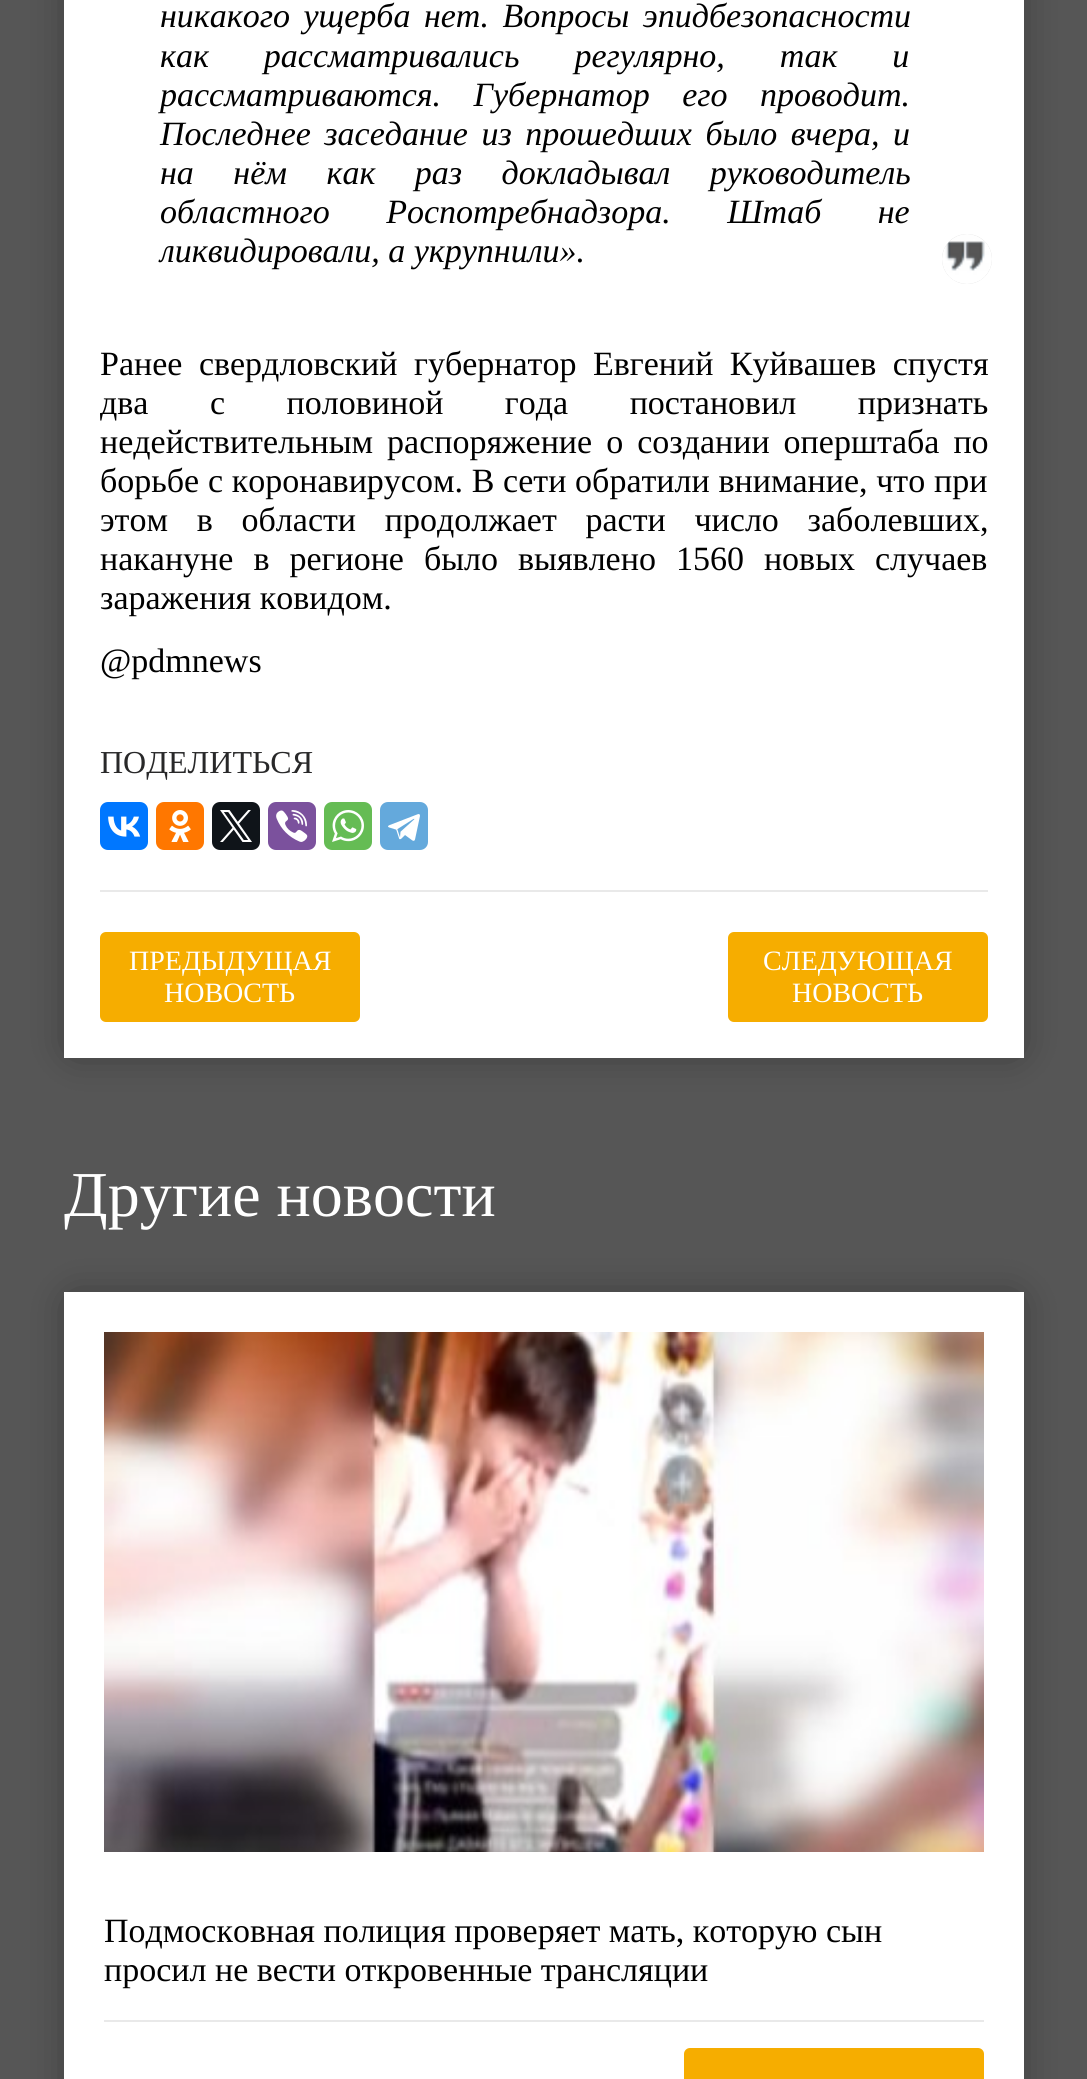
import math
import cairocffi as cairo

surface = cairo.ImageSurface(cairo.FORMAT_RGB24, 1087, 2079)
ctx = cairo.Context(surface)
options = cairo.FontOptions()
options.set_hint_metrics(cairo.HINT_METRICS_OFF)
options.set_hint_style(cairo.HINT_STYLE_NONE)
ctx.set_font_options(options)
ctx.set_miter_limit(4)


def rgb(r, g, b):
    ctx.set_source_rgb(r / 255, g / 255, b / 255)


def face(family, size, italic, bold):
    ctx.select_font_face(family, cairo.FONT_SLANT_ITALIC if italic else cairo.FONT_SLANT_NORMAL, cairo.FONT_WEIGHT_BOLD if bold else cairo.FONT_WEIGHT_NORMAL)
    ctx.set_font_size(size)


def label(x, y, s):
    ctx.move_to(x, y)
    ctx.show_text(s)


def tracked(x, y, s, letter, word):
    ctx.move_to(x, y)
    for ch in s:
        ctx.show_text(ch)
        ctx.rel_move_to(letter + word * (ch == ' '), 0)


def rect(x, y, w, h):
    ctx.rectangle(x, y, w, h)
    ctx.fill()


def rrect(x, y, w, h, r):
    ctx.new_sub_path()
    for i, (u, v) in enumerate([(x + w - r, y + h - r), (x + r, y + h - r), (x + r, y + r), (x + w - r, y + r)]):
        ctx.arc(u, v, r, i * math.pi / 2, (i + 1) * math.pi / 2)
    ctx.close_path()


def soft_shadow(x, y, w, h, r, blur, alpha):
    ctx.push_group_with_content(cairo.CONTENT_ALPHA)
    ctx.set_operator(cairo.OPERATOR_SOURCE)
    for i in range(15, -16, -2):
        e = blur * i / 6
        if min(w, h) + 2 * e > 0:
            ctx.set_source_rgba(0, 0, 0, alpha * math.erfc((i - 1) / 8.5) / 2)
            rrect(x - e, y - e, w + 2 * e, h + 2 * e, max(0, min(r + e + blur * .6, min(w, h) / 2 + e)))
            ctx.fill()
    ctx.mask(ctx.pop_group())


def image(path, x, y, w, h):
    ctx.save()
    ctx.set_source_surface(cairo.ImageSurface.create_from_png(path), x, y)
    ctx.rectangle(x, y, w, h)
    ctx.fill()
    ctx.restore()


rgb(86, 86, 86)
ctx.paint()
rgb(0, 0, 0)
soft_shadow(74, -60, 940, 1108, 0, 20, 0.49)
rgb(255, 255, 255)
rect(64, 0, 960, 1058)
face('Liberation Serif', 34, 1, 0)
rgb(0, 0, 0)
tracked(160, 27, 'никакого ущерба нет. Вопросы эпидбезопасности', 0, 5)
tracked(160, 67, 'как рассматривались регулярно, так и', 0, 46.5)
tracked(160, 106, 'рассматриваются. Губернатор его проводит.', 0, 24)
tracked(160, 145, 'Последнее заседание из прошедших было вчера, и', 0, 5)
tracked(160, 184, 'на нём как раз докладывал руководитель', 0, 31)
tracked(160, 223, 'областного Роспотребнадзора. Штаб не', 0, 48)
label(160, 262, 'ликвидировали, а укрупнили».')
rgb(221, 221, 221)
ctx.new_path()
ctx.arc(967, 259, 25, 0, 2 * math.pi)
ctx.fill()
image('image0.png', 942, 234, 50, 50)
face('Liberation Serif', 34, 0, 0)
rgb(0, 0, 0)
tracked(100, 375, 'Ранее свердловский губернатор Евгений Куйвашев спустя', 0, 8)
tracked(100, 414, 'два с половиной года постановил признать', 0, 53)
tracked(100, 453, 'недействительным распоряжение о создании оперштаба по', 0, 5.5)
tracked(100, 492, 'борьбе с коронавирусом. В сети обратили внимание, что при', 0, 0.25)
tracked(100, 531, 'этом в области продолжает расти число заболевших,', 0, 20.25)
tracked(100, 570, 'накануне в регионе было выявлено 1560 новых случаев', 0, 11.5)
label(100, 609, 'заражения ковидом.')
label(100, 672, '@pdmnews')
face('Liberation Serif', 32, 0, 0)
rgb(40, 40, 41)
label(100, 773, 'ПОДЕЛИТЬСЯ')
rgb(0, 119, 255)
rrect(100, 802, 48, 48, 8)
ctx.fill()
image('image1.png', 108, 816, 33, 21)
rgb(255, 119, 0)
rrect(156, 802, 48, 48, 8)
ctx.fill()
image('image2.png', 169, 810, 22, 32)
rgb(15, 20, 25)
rrect(212, 802, 48, 48, 8)
ctx.fill()
image('image3.png', 220, 810, 32, 32)
rgb(123, 81, 157)
rrect(268, 802, 48, 48, 8)
ctx.fill()
image('image4.png', 276, 810, 32, 32)
rgb(101, 188, 84)
rrect(324, 802, 48, 48, 8)
ctx.fill()
image('image5.png', 332, 810, 32, 32)
rgb(100, 169, 220)
rrect(380, 802, 48, 48, 8)
ctx.fill()
image('image6.png', 388, 814, 32, 27)
rgb(233, 233, 233)
rect(100, 890, 888, 2)
rgb(246, 173, 0)
rrect(100, 932, 260, 90, 6)
ctx.fill()
face('Liberation Serif', 28, 0, 0)
rgb(255, 255, 255)
label(129, 970, 'ПРЕДЫДУЩАЯ')
label(164, 1002, 'НОВОСТЬ')
rgb(246, 173, 0)
rrect(728, 932, 260, 90, 6)
ctx.fill()
rgb(255, 255, 255)
label(763, 970, 'СЛЕДУЮЩАЯ')
label(792, 1002, 'НОВОСТЬ')
face('Liberation Serif', 64, 0, 0)
label(64, 1216, 'Другие новости')
rgb(0, 0, 0)
soft_shadow(74, 1302, 940, 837, 0, 20, 0.49)
rgb(255, 255, 255)
rect(64, 1292, 960, 787)
image('image7.png', 104, 1332, 880, 520)
face('Liberation Serif', 34, 0, 0)
rgb(0, 0, 0)
label(104, 1942, 'Подмосковная полиция проверяет мать, которую сын')
label(104, 1981, 'просил не вести откровенные трансляции')
rgb(233, 233, 233)
rect(104, 2020, 880, 2)
rgb(246, 173, 0)
rrect(684, 2048, 300, 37, 6)
ctx.fill()
surface.write_to_png('render.png')
